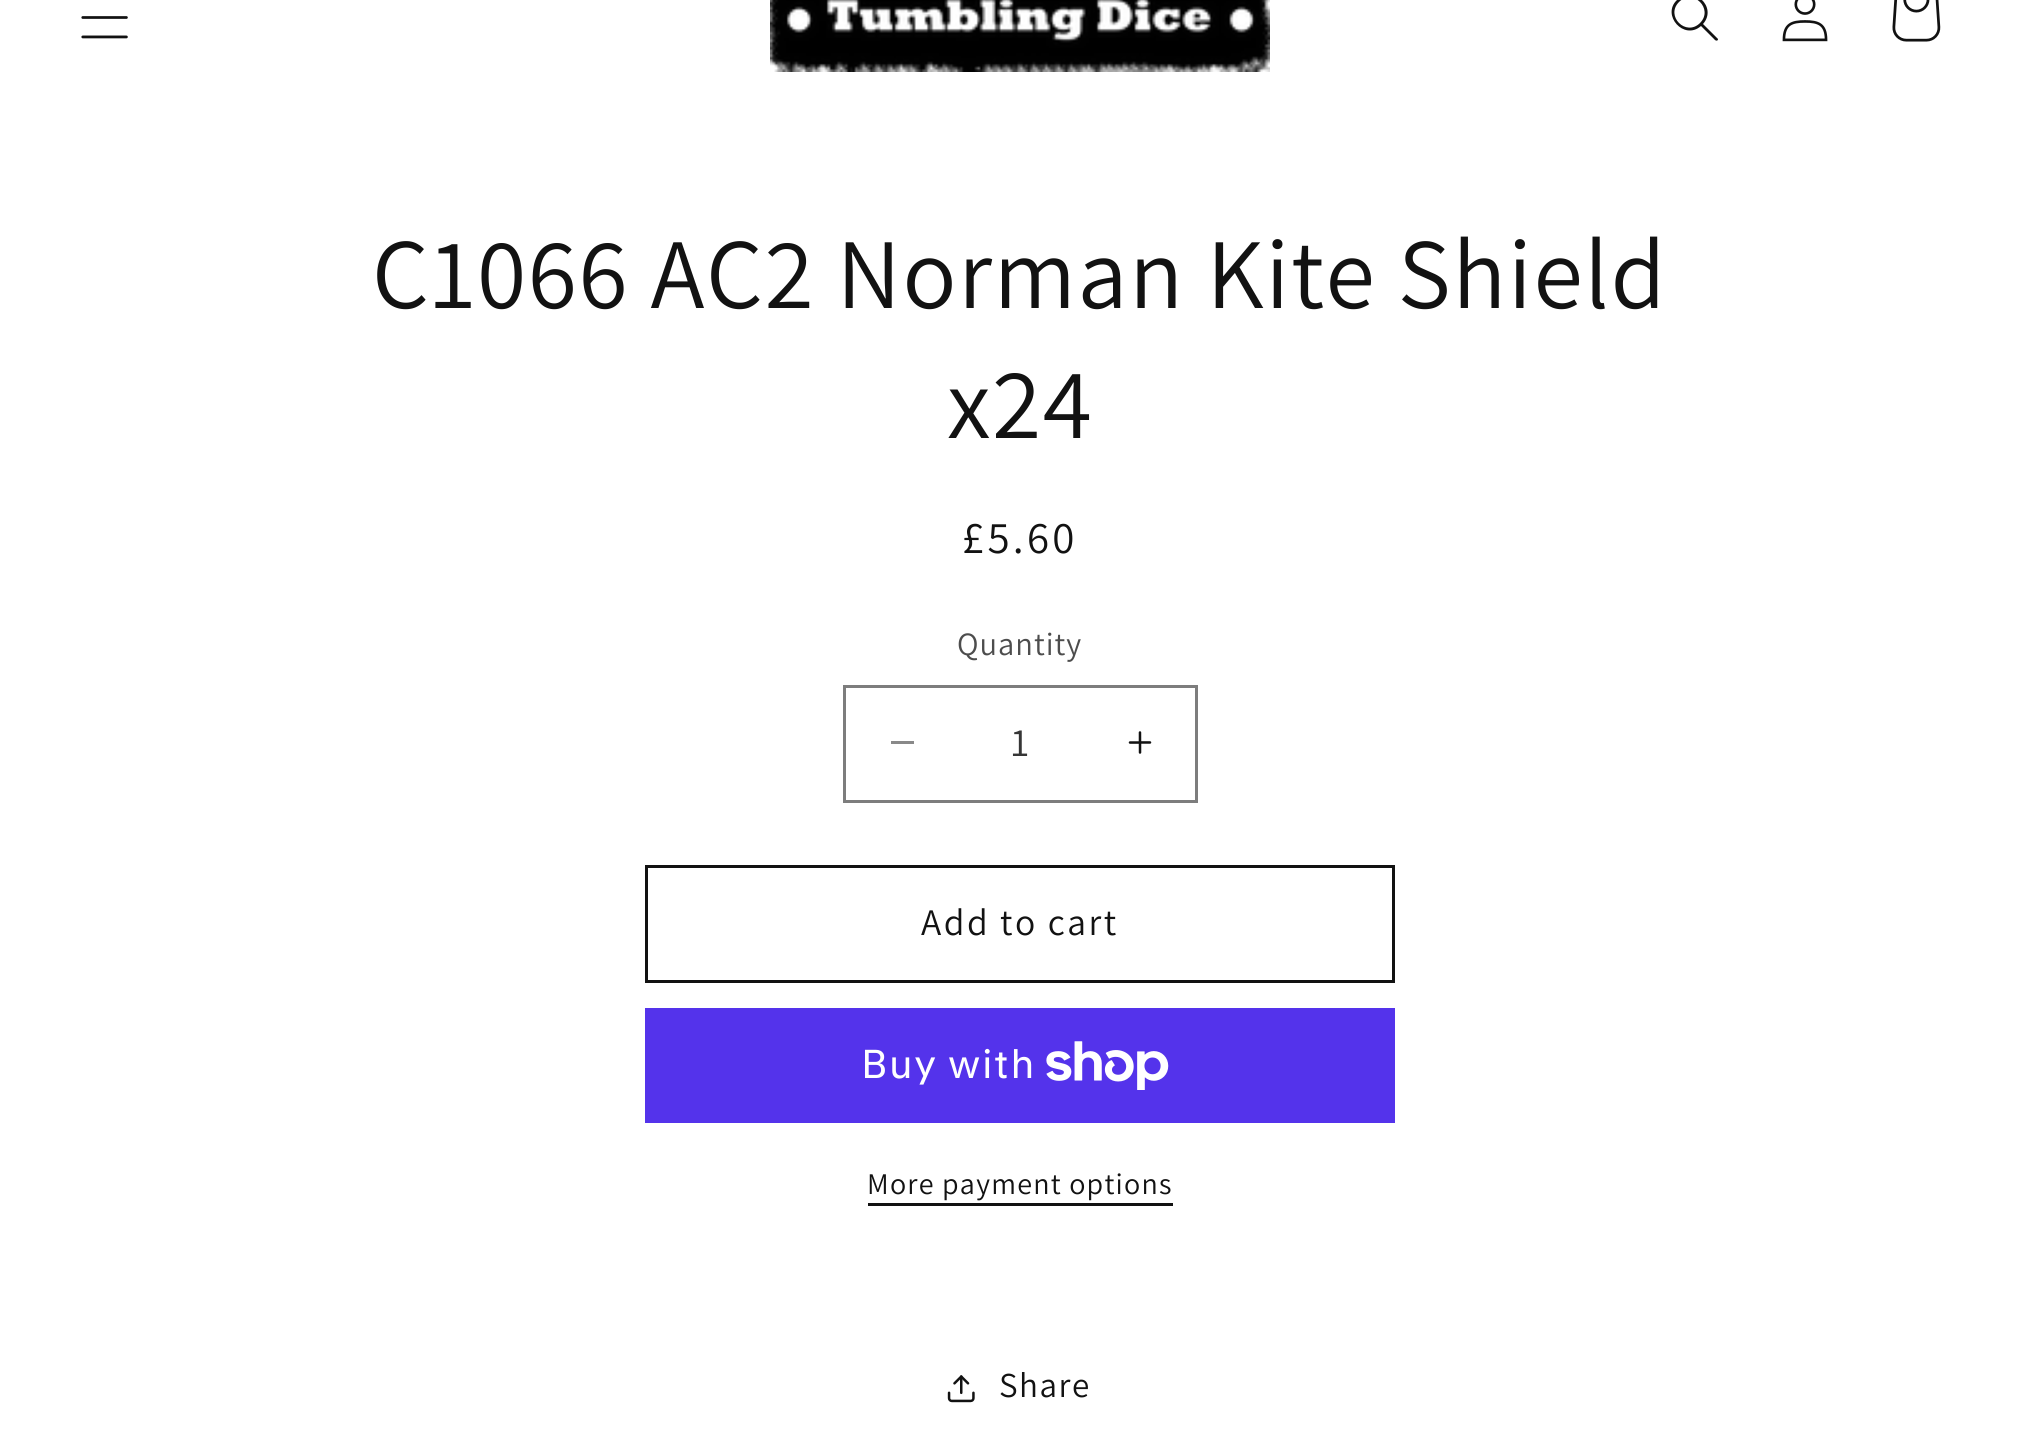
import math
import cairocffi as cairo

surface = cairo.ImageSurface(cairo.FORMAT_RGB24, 2039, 1455)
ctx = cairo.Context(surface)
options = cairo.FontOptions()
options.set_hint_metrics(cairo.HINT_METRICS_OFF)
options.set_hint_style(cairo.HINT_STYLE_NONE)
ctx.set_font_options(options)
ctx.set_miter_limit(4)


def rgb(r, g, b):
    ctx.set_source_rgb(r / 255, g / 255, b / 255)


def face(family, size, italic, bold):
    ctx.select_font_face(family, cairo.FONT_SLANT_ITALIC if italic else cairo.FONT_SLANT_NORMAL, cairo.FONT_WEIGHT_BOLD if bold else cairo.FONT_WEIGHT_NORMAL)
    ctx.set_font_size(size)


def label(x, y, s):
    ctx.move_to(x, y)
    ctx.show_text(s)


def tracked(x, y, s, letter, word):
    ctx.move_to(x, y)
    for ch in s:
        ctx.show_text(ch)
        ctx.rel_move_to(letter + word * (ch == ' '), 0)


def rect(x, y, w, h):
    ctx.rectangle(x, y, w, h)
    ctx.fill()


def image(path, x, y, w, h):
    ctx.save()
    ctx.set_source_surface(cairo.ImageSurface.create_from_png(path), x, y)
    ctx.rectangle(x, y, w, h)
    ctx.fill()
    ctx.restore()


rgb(255, 255, 255)
ctx.paint()
image('image0.png', 81, 16, 47, 23)
image('image1.png', 770, 0, 500, 72)
rgb(18, 18, 18)
ctx.set_fill_rule(cairo.FILL_RULE_EVEN_ODD)
ctx.new_path()
ctx.move_to(1700, 23)
ctx.curve_to(1686, 37, 1665, 16, 1679, 2)
ctx.curve_to(1693, -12, 1714, 9, 1700, 23)
ctx.move_to(1701, 26)
ctx.curve_to(1684, 41, 1661, 15, 1677, 0)
ctx.curve_to(1693, -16, 1718, 7, 1703, 24)
ctx.line_to(1718, 39)
ctx.curve_to(1718, 41, 1716, 41, 1715, 40)
ctx.close_path()
ctx.fill()
image('image2.png', 1782, 0, 46, 42)
image('image3.png', 1892, 0, 49, 42)
face('Assistant', 100, 0, 0)
tracked(372, 308, 'C1066 AC2 Norman Kite Shield', 1.5, 0)
tracked(947, 438, 'x24', 1.5, 0)
face('Assistant', 45, 0, 0)
tracked(962, 553, '£5.60', 3.25, 0)
face('Assistant', 32.5, 0, 0)
rgb(77, 77, 77)
tracked(957, 655, 'Quantity', 1, 0)
rgb(137, 137, 137)
rect(891, 741, 23, 3)
image('image4.png', 1128, 731, 24, 23)
ctx.rectangle(844.5, 686.5, 352, 115)
rgb(125, 125, 125)
ctx.set_line_width(3)
ctx.stroke()
face('Assistant', 40, 0, 0)
rgb(54, 54, 54)
label(1011, 756, '1')
ctx.rectangle(646.5, 866.5, 747, 115)
rgb(18, 18, 18)
ctx.stroke()
face('Assistant', 37.5, 0, 0)
tracked(921, 935, 'Add to cart', 2.5, 0)
rgb(84, 51, 235)
rect(645, 1008, 750, 115)
face('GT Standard', 40, 0, 0)
rgb(255, 255, 255)
tracked(861, 1078, 'Buy with', 1.5, 0)
image('image5.png', 1046, 1041, 123, 49)
face('Assistant', 30, 0, 0)
rgb(18, 18, 18)
tracked(867, 1194, 'More payment options', 1.25, 0)
rect(868, 1203, 305, 3)
image('image6.png', 947, 1375, 28, 28)
face('Assistant', 35, 0, 0)
tracked(999, 1397, 'Share', 1.5, 0)
surface.write_to_png('render.png')
